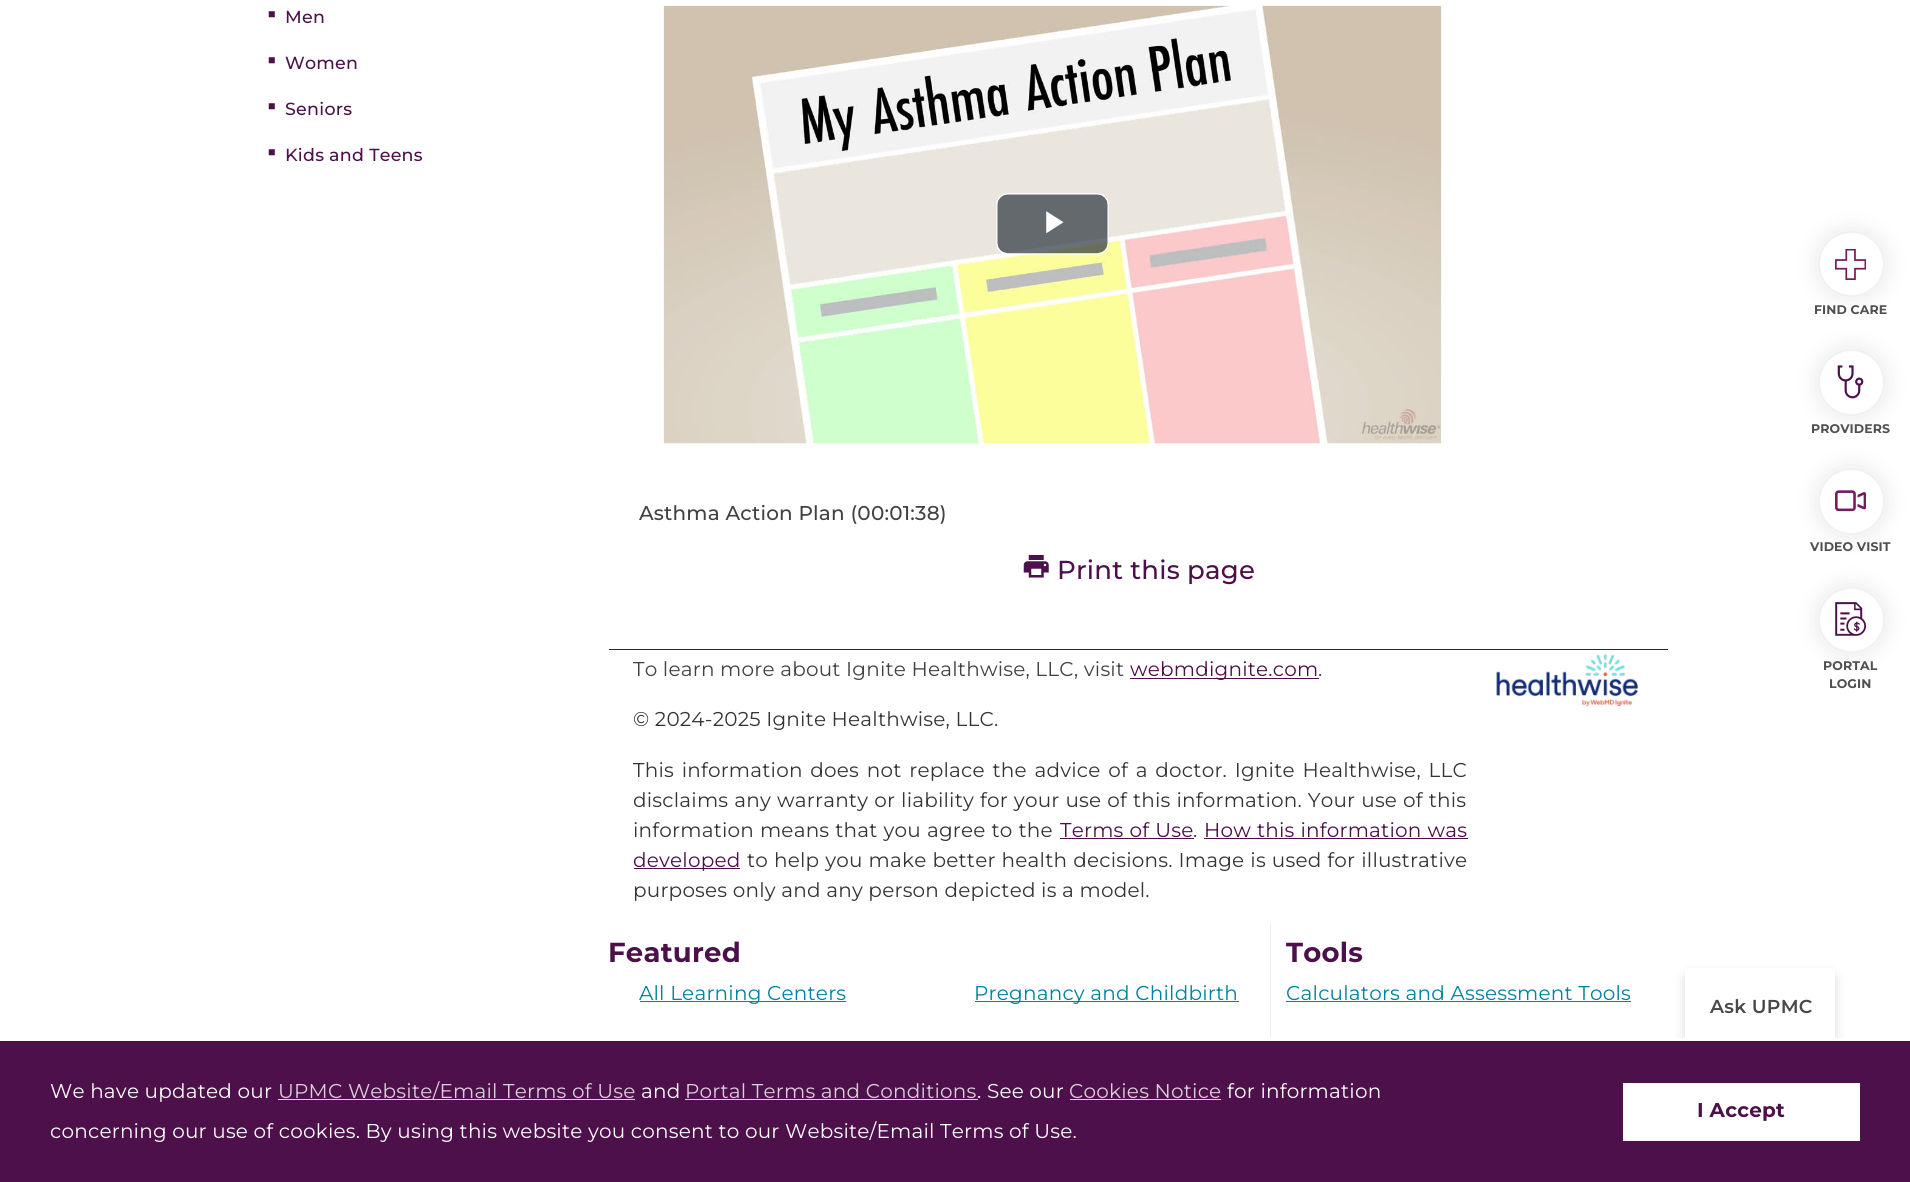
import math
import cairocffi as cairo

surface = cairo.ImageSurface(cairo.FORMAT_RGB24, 1910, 1182)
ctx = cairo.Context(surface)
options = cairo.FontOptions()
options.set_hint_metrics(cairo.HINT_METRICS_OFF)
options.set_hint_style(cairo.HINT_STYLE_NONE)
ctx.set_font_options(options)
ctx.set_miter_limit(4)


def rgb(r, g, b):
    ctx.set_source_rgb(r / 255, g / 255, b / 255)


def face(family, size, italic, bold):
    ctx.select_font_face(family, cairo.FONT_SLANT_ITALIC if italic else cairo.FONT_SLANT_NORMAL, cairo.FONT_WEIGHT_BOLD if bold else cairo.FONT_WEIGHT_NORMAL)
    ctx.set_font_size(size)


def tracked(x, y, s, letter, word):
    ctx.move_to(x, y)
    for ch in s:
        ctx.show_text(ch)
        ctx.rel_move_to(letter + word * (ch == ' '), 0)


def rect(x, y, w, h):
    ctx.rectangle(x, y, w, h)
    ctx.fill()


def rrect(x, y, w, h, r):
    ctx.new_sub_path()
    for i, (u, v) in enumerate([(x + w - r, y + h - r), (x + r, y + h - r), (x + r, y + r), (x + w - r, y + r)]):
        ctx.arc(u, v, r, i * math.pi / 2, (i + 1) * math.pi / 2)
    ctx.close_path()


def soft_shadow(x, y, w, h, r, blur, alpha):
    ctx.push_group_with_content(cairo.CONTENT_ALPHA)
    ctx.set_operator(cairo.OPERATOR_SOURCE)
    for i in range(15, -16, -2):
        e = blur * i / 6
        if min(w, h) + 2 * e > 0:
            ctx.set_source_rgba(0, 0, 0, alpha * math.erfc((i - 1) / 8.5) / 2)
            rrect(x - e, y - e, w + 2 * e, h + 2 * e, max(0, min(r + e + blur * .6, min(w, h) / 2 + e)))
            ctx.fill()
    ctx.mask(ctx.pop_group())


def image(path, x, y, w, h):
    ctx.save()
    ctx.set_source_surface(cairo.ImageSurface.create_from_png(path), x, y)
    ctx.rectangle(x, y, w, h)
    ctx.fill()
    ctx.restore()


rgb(255, 255, 255)
ctx.paint()
face('Liberation Sans', 12.5, 0, 0)
rgb(77, 16, 74)
tracked(268, 18, '■', 0.25, 0)
face('Montserrat Thin', 17.5, 0, 0)
tracked(285, 23, 'Men', 0.25, 0)
face('Liberation Sans', 12.5, 0, 0)
tracked(268, 64, '■', 0.25, 0)
face('Montserrat Thin', 17.5, 0, 0)
tracked(285, 69, 'Women', 0.25, 0)
face('Liberation Sans', 12.5, 0, 0)
tracked(268, 110, '■', 0.25, 0)
face('Montserrat Thin', 17.5, 0, 0)
tracked(285, 115, 'Seniors', 0.25, 0)
face('Liberation Sans', 12.5, 0, 0)
tracked(268, 156, '■', 0.25, 0)
face('Montserrat Thin', 17.5, 0, 0)
tracked(285, 161, 'Kids and Teens', 0.25, 0)
image('image0.png', 663, 5, 779, 439)
face('Montserrat Thin', 20, 0, 0)
rgb(66, 66, 66)
tracked(639, 520, 'Asthma Action Plan (00:01:38)', 0.2, 0)
image('image1.png', 1023, 555, 26, 23)
face('Montserrat Thin', 26, 0, 0)
rgb(77, 16, 74)
tracked(1057, 579, 'Print this page', 0.2, 0)
rect(609, 649, 1059, 1)
face('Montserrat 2 Thin', 20, 0, 0)
rgb(66, 66, 66)
tracked(633, 676, 'To learn more about Ignite Healthwise, LLC, visit', 0.2, 0)
rgb(77, 16, 74)
rect(1130, 678, 189, 1)
tracked(1130, 676, 'webmdignite.com', 0.2, 0)
rgb(66, 66, 66)
tracked(1318, 676, '.', 0.2, 0)
rgb(54, 53, 51)
tracked(633, 726, '© 2024-2025 Ignite Healthwise, LLC.', 0.2, 0)
tracked(633, 777, 'This information does not replace the advice of a doctor. Ignite Healthwise, LLC', 0.2, 2.25)
tracked(633, 807, 'disclaims any warranty or liability for your use of this information. Your use of this', 0.2, 0.5)
tracked(633, 837, 'information means that you agree to the', 0.2, 0.5)
rgb(77, 16, 74)
tracked(1060, 837, 'Terms of Use', 0.2, 0.5)
rect(1060, 838, 134, 1)
rgb(54, 53, 51)
tracked(1193, 837, '.', 0.2, 0)
rgb(77, 16, 74)
tracked(1204, 837, 'How this information was', 0.2, 0.5)
rect(1204, 838, 264, 1)
rect(634, 868, 106, 1)
tracked(633, 867, 'developed', 0.2, 0)
rgb(54, 53, 51)
tracked(747, 867, 'to help you make better health decisions. Image is used for illustrative', 0.2, 0.5)
tracked(633, 897, 'purposes only and any person depicted is a model.', 0.2, 0)
image('image2.png', 1496, 654, 142, 53)
rgb(238, 238, 238)
rect(1270, 923, 1, 115)
face('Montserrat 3 Thin', 27.5, 0, 0)
rgb(77, 16, 74)
tracked(608, 962, 'Featured', 0.25, 0)
rgb(0, 129, 159)
rect(640, 1001, 206, 1)
face('Montserrat 2 Thin', 20, 0, 0)
tracked(639, 1000, 'All Learning Centers', 0.2, 0)
rect(975, 1001, 264, 1)
tracked(974, 1000, 'Pregnancy and Childbirth', 0.2, 0)
face('Montserrat 3 Thin', 27.5, 0, 0)
rgb(77, 16, 74)
tracked(1286, 962, 'Tools', 0.25, 0)
face('Montserrat 2 Thin', 20, 0, 0)
rgb(0, 129, 159)
tracked(1286, 1000, 'Calculators and Assessment Tools', 0.2, 0)
rect(1286, 1001, 345, 1)
rgb(0, 0, 0)
soft_shadow(1820, 233, 63, 62, 31, 12.5, 0.11)
rgb(255, 255, 255)
rrect(1820, 233, 63, 62, 31)
ctx.fill()
image('image3.png', 1835, 249, 31, 31)
face('Montserrat 3 Thin', 12.5, 0, 0)
rgb(80, 80, 80)
tracked(1814, 314, 'FIND CARE', 0.1, 0)
rgb(0, 0, 0)
soft_shadow(1820, 351, 63, 63, 31.5, 12.5, 0.11)
rgb(255, 255, 255)
ctx.arc(1851.5, 382.5, 31.5, 0, 2 * math.pi)
ctx.fill()
image('image4.png', 1837, 365, 27, 34)
rgb(80, 80, 80)
tracked(1811, 433, 'PROVIDERS', 0.1, 0)
rgb(0, 0, 0)
soft_shadow(1820, 470, 63, 63, 31.5, 12.5, 0.11)
rgb(255, 255, 255)
ctx.arc(1851.5, 501.5, 31.5, 0, 2 * math.pi)
ctx.fill()
image('image5.png', 1835, 490, 31, 22)
rgb(80, 80, 80)
tracked(1810, 551, 'VIDEO VISIT', 0.1, 0)
rgb(0, 0, 0)
soft_shadow(1820, 589, 63, 62, 31, 12.5, 0.11)
rgb(255, 255, 255)
rrect(1820, 589, 63, 62, 31)
ctx.fill()
image('image6.png', 1835, 602, 31, 34)
rgb(80, 80, 80)
tracked(1823, 670, 'PORTAL', 0.1, 0)
tracked(1829, 688, 'LOGIN', 0.1, 0)
rgb(0, 0, 0)
soft_shadow(1685, 974, 150, 80, 5, 6, 0.14)
rgb(255, 255, 255)
rrect(1685, 968, 150, 80, 5)
ctx.fill()
face('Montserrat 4 Thin', 18.75, 0, 0)
rgb(74, 73, 71)
tracked(1710, 1013, 'Ask UPMC', 0.25, 0)
ctx.set_source_rgba(1, 1, 1, 0.9)
ctx.new_path()
ctx.move_to(1796.5, 1046.5)
ctx.line_to(1811, 1034)
ctx.line_to(1809, 1057.5)
ctx.close_path()
ctx.fill()
rgb(77, 16, 74)
rect(0, 1041, 1910, 141)
rgb(255, 255, 255)
rect(1676, 1038, 168, 3)
face('Montserrat 2 Thin', 20, 0, 0)
tracked(50, 1098, 'We have updated our', 0.2, 0)
rgb(219, 207, 219)
rect(278, 1099, 357, 1)
tracked(278, 1098, 'UPMC Website/Email Terms of Use', 0.2, 0)
rgb(255, 255, 255)
tracked(641, 1098, 'and', 0.2, 0)
rgb(219, 207, 219)
tracked(685, 1098, 'Portal Terms and Conditions', 0.2, 0)
rect(685, 1099, 293, 1)
rgb(255, 255, 255)
tracked(977, 1098, '. See our', 0.2, 0)
rgb(219, 207, 219)
tracked(1069, 1098, 'Cookies Notice', 0.2, 0)
rect(1070, 1099, 151, 1)
rgb(255, 255, 255)
tracked(1227, 1098, 'for information', 0.2, 0)
tracked(50, 1138, 'concerning our use of cookies. By using this website you consent to our Website/Email Terms of Use.', 0.2, 0)
rect(1623, 1083, 237, 58)
face('Montserrat 3 Thin', 20, 0, 0)
rgb(77, 16, 74)
tracked(1697, 1117, 'I Accept', 0.2, 0)
surface.write_to_png('render.png')
